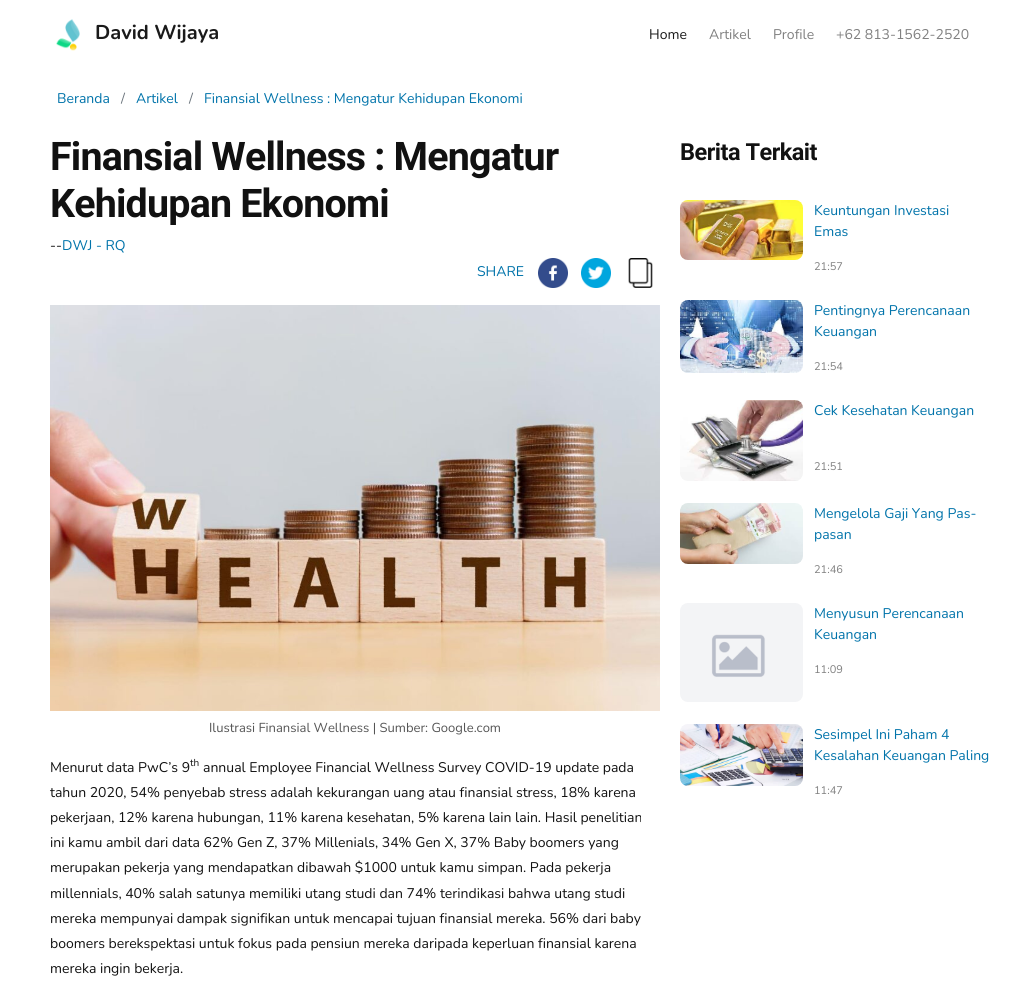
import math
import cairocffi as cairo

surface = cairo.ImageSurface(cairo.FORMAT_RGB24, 1030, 989)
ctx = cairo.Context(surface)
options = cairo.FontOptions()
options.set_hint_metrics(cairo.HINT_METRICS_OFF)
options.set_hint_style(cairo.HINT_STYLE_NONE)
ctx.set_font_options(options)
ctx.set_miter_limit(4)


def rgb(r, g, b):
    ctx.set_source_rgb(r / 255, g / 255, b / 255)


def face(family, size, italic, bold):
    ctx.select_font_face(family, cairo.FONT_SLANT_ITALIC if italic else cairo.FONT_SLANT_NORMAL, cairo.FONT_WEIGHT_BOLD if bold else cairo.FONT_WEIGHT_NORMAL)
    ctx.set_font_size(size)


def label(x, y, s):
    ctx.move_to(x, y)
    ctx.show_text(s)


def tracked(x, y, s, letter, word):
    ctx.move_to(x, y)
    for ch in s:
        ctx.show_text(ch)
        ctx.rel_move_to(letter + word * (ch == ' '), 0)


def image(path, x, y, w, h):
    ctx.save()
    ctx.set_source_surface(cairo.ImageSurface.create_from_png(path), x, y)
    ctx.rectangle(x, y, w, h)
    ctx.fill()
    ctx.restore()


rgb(255, 255, 255)
ctx.paint()
image('image0.png', 56, 19, 24, 32)
face('Nunito', 20, 0, 1)
rgb(26, 26, 26)
label(95, 39, 'David Wijaya')
face('Nunito', 14, 0, 0)
label(649, 39, 'Home')
rgb(128, 128, 128)
label(709, 39, 'Artikel')
label(773, 39, 'Profile')
label(836, 39, '+62 813-1562-2520')
rgb(0, 115, 170)
label(57, 103, 'Beranda')
rgb(108, 117, 125)
label(121, 103, '/')
rgb(0, 115, 170)
label(136, 103, 'Artikel')
rgb(108, 117, 125)
label(189, 103, '/')
rgb(0, 115, 170)
label(204, 103, 'Finansial Wellness : Mengatur Kehidupan Ekonomi')
face('Roboto', 39.4, 0, 1)
rgb(17, 17, 17)
tracked(50, 170, 'Finansial Wellness : Mengatur', -0.8, 0)
tracked(50, 217, 'Kehidupan Ekonomi', -0.8, 0)
face('Nunito', 14, 0, 0)
label(50, 250, '--')
rgb(0, 115, 170)
label(62, 250, 'DWJ - RQ')
label(477, 276, 'SHARE')
image('image1.png', 538, 258, 30, 30)
image('image2.png', 581, 258, 30, 30)
image('image3.png', 628, 258, 25, 30)
image('image4.png', 50, 305, 610, 406)
face('Nunito', 13, 0, 0)
rgb(85, 85, 85)
label(209, 732, 'Ilustrasi Finansial Wellness | Sumber: Google.com')
face('Nunito', 14, 0, 0)
rgb(17, 17, 17)
label(50, 772, 'Menurut data PwC’s 9')
face('Nunito', 10, 0, 0)
label(190, 766, 'th')
face('Nunito', 14, 0, 0)
label(203, 772, 'annual Employee Financial Wellness Survey COVID-19 update pada')
label(50, 797, 'tahun 2020, 54% penyebab stress adalah kekurangan uang atau finansial stress, 18% karena')
label(50, 822, 'pekerjaan, 12% karena hubungan, 11% karena kesehatan, 5% karena lain lain. Hasil penelitian')
label(50, 847, 'ini kamu ambil dari data 62% Gen Z, 37% Millenials, 34% Gen X, 37% Baby boomers yang')
label(50, 872, 'merupakan pekerja yang mendapatkan dibawah $1000 untuk kamu simpan. Pada pekerja')
label(50, 898, 'millennials, 40% salah satunya memiliki utang studi dan 74% terindikasi bahwa utang studi')
label(50, 923, 'mereka mempunyai dampak signifikan untuk mencapai tujuan finansial mereka. 56% dari baby')
label(50, 948, 'boomers berekspektasi untuk fokus pada pensiun mereka daripada keperluan finansial karena')
label(50, 973, 'mereka ingin bekerja.')
face('Roboto', 23.5, 0, 1)
tracked(680, 160, 'Berita Terkait', -0.5, 0)
image('image5.png', 680, 200, 123, 60)
face('Nunito', 14, 0, 0)
rgb(0, 115, 170)
label(814, 215, 'Keuntungan Investasi')
label(814, 236, 'Emas')
face('Nunito', 11, 0, 0)
rgb(128, 128, 128)
label(814, 270, '21:57')
image('image6.png', 680, 300, 123, 73)
face('Nunito', 14, 0, 0)
rgb(0, 115, 170)
label(814, 315, 'Pentingnya Perencanaan')
label(814, 336, 'Keuangan')
face('Nunito', 11, 0, 0)
rgb(128, 128, 128)
label(814, 370, '21:54')
image('image7.png', 680, 400, 123, 81)
face('Nunito', 14, 0, 0)
rgb(0, 115, 170)
label(814, 415, 'Cek Kesehatan Keuangan')
face('Nunito', 11, 0, 0)
rgb(128, 128, 128)
label(814, 470, '21:51')
image('image8.png', 680, 503, 123, 61)
face('Nunito', 14, 0, 0)
rgb(0, 115, 170)
label(814, 518, 'Mengelola Gaji Yang Pas-')
label(814, 539, 'pasan')
face('Nunito', 11, 0, 0)
rgb(128, 128, 128)
label(814, 573, '21:46')
image('image9.png', 680, 603, 123, 99)
face('Nunito', 14, 0, 0)
rgb(0, 115, 170)
label(814, 618, 'Menyusun Perencanaan')
label(814, 639, 'Keuangan')
face('Nunito', 11, 0, 0)
rgb(128, 128, 128)
label(814, 673, '11:09')
image('image10.png', 680, 724, 123, 62)
face('Nunito', 14, 0, 0)
rgb(0, 115, 170)
label(814, 739, 'Sesimpel Ini Paham 4')
label(814, 760, 'Kesalahan Keuangan Paling')
face('Nunito', 11, 0, 0)
rgb(128, 128, 128)
label(814, 794, '11:47')
surface.write_to_png('render.png')
